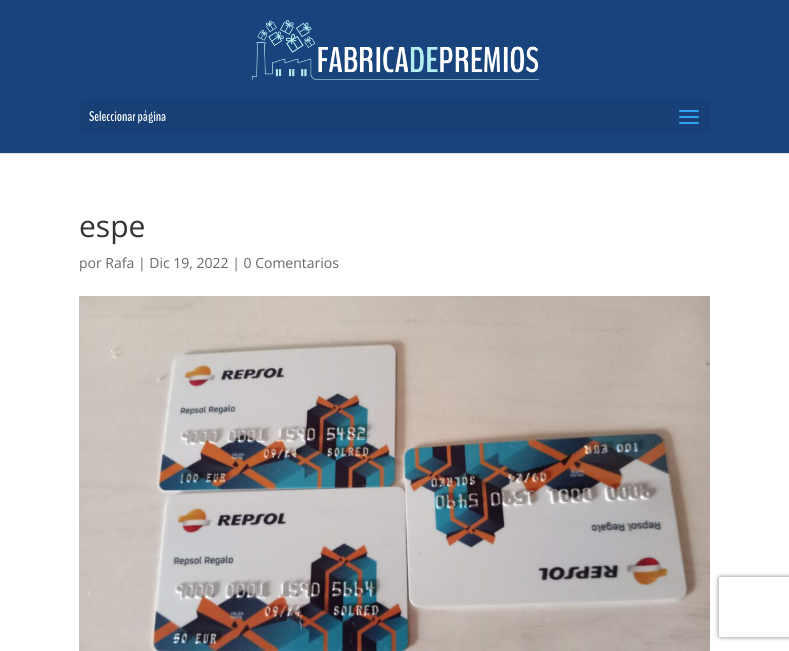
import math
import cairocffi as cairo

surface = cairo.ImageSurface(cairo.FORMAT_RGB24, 789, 651)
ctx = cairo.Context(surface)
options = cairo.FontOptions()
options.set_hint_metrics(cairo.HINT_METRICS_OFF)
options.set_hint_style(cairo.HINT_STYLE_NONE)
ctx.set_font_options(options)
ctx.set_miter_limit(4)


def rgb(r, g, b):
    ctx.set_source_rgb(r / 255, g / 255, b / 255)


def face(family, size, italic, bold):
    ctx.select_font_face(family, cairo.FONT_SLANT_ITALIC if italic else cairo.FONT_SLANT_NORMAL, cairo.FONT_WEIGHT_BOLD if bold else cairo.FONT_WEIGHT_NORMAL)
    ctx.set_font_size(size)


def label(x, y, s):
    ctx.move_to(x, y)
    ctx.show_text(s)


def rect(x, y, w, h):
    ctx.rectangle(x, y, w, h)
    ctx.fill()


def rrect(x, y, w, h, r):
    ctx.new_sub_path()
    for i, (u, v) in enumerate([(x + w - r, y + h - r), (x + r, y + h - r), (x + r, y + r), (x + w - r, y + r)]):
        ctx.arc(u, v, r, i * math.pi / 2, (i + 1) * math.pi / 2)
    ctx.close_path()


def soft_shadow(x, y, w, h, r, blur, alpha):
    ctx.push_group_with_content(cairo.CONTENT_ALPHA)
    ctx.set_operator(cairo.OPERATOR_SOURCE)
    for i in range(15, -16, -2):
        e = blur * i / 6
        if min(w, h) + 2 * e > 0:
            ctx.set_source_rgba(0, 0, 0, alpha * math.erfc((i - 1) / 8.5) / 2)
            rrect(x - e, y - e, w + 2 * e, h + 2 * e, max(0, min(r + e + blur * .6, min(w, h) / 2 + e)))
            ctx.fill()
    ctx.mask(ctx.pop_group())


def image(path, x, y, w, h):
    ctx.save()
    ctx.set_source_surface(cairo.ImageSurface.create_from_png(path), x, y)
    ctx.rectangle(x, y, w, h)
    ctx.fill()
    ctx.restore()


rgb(255, 255, 255)
ctx.paint()
rgb(230, 230, 230)
rect(0, 153, 789, 1)
rgb(25, 67, 125)
rect(0, 0, 789, 153)
image('image0.png', 252, 20, 287, 60)
rgb(24, 64, 119)
rrect(79, 100, 631, 33, 5)
ctx.fill()
face('BenchNine', 14, 0, 1)
rgb(255, 255, 255)
label(89, 121, 'Seleccionar página')
image('image1.png', 679, 110, 20, 14)
face('Open Sans', 30, 0, 0)
rgb(51, 51, 51)
label(79, 237, 'espe')
face('Open Sans', 14, 0, 0)
rgb(102, 102, 102)
label(79, 268, 'por Rafa | Dic 19, 2022 | 0 Comentarios')
image('image2.png', 79, 296, 631, 355)
ctx.save()
ctx.set_fill_rule(cairo.FILL_RULE_EVEN_ODD)
ctx.new_path()
ctx.move_to(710, 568)
ctx.line_to(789, 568)
ctx.line_to(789, 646)
ctx.line_to(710, 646)
ctx.close_path()
ctx.move_to(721, 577)
ctx.line_to(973, 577)
ctx.curve_to(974, 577, 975, 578, 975, 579)
ctx.line_to(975, 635)
ctx.curve_to(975, 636, 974, 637, 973, 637)
ctx.line_to(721, 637)
ctx.curve_to(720, 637, 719, 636, 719, 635)
ctx.line_to(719, 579)
ctx.curve_to(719, 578, 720, 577, 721, 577)
ctx.close_path()
ctx.clip()
rgb(128, 128, 128)
soft_shadow(719, 577, 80, 60, 2, 2.5, 1)
ctx.restore()
surface.write_to_png('render.png')
